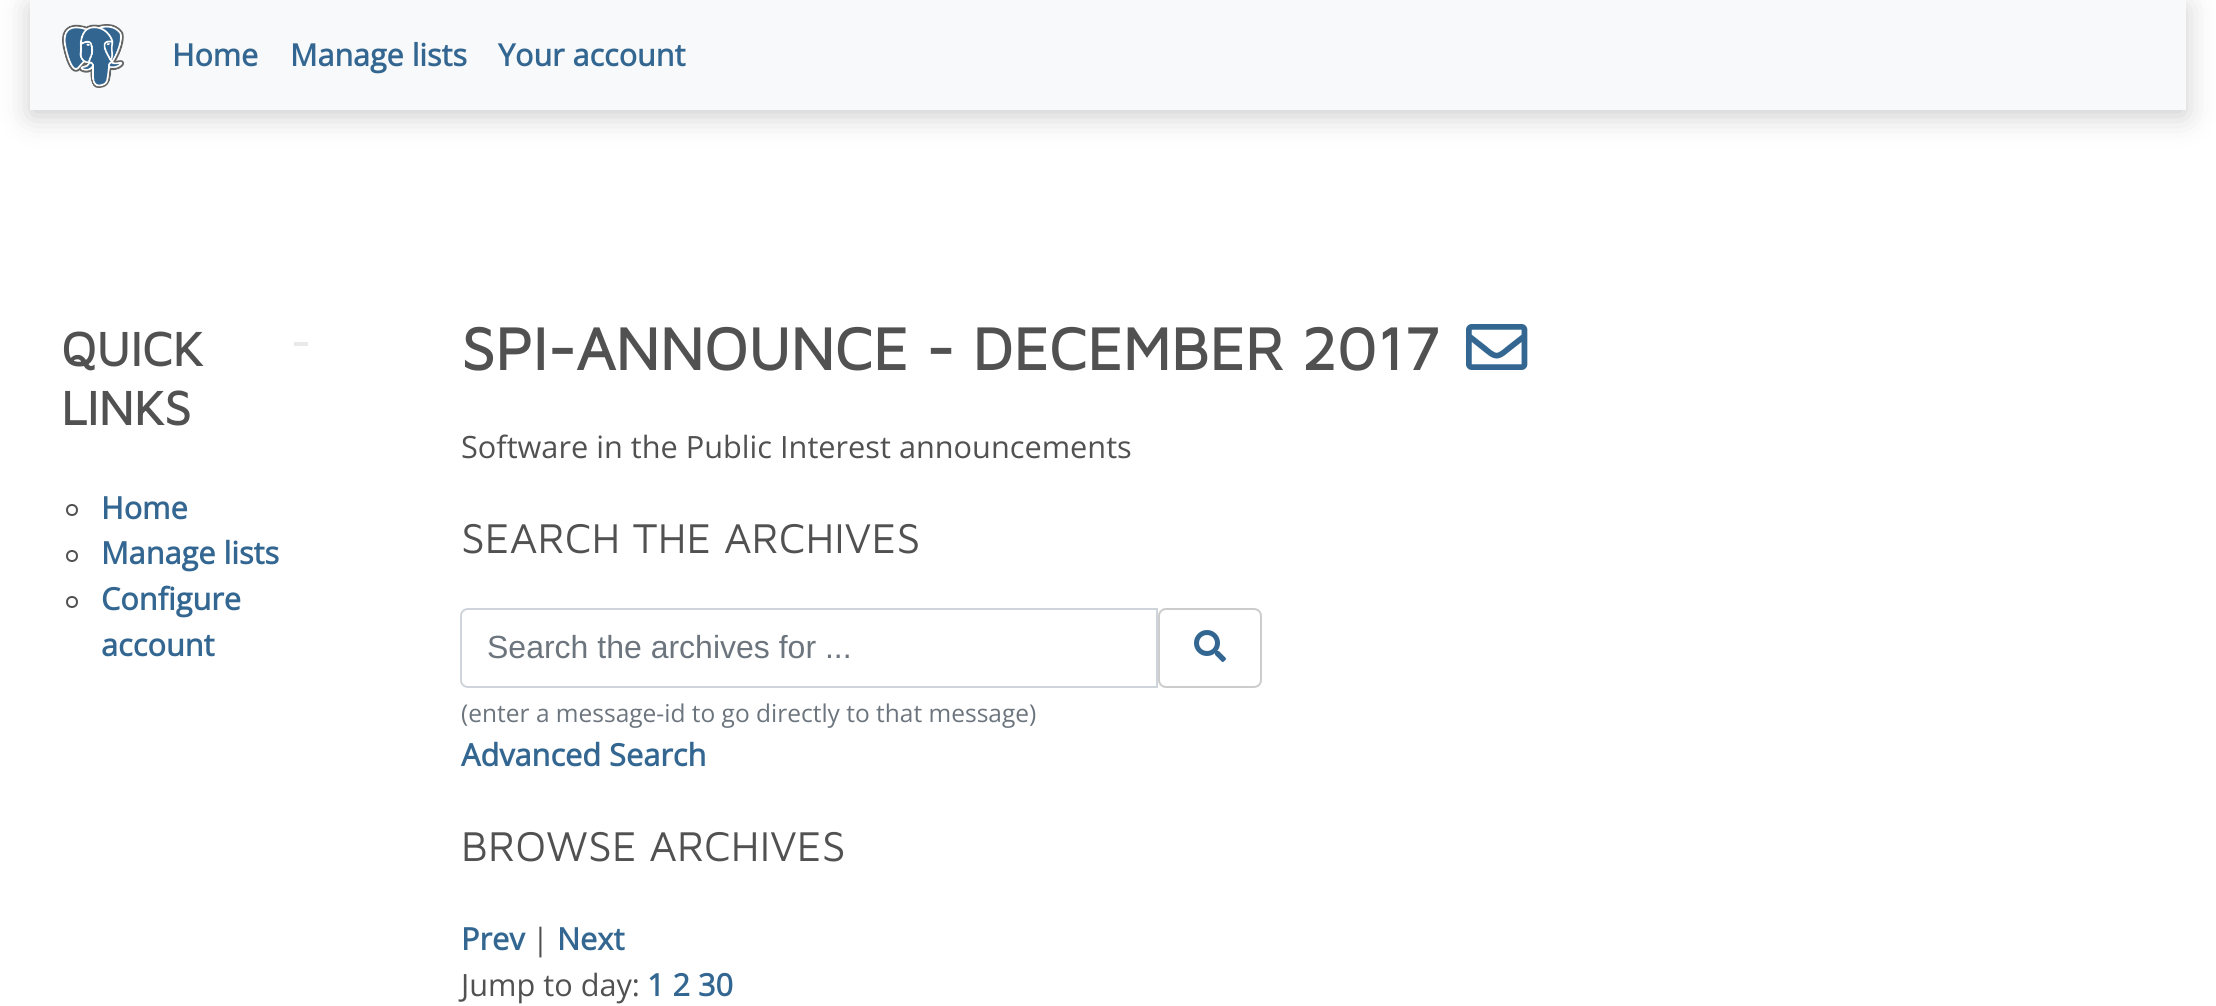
import math
import cairocffi as cairo

surface = cairo.ImageSurface(cairo.FORMAT_RGB24, 2216, 1006)
ctx = cairo.Context(surface)
options = cairo.FontOptions()
options.set_hint_metrics(cairo.HINT_METRICS_OFF)
options.set_hint_style(cairo.HINT_STYLE_NONE)
ctx.set_font_options(options)
ctx.set_miter_limit(4)


def rgb(r, g, b):
    ctx.set_source_rgb(r / 255, g / 255, b / 255)


def face(family, size, italic, bold):
    ctx.select_font_face(family, cairo.FONT_SLANT_ITALIC if italic else cairo.FONT_SLANT_NORMAL, cairo.FONT_WEIGHT_BOLD if bold else cairo.FONT_WEIGHT_NORMAL)
    ctx.set_font_size(size)


def label(x, y, s):
    ctx.move_to(x, y)
    ctx.show_text(s)


def rect(x, y, w, h):
    ctx.rectangle(x, y, w, h)
    ctx.fill()


def rrect(x, y, w, h, r):
    ctx.new_sub_path()
    for i, (u, v) in enumerate([(x + w - r, y + h - r), (x + r, y + h - r), (x + r, y + r), (x + w - r, y + r)]):
        ctx.arc(u, v, r, i * math.pi / 2, (i + 1) * math.pi / 2)
    ctx.close_path()


def soft_shadow(x, y, w, h, r, blur, alpha):
    ctx.push_group_with_content(cairo.CONTENT_ALPHA)
    ctx.set_operator(cairo.OPERATOR_SOURCE)
    for i in range(15, -16, -2):
        e = blur * i / 6
        if min(w, h) + 2 * e > 0:
            ctx.set_source_rgba(0, 0, 0, alpha * math.erfc((i - 1) / 8.5) / 2)
            rrect(x - e, y - e, w + 2 * e, h + 2 * e, max(0, min(r + e + blur * .6, min(w, h) / 2 + e)))
            ctx.fill()
    ctx.mask(ctx.pop_group())


def image(path, x, y, w, h):
    ctx.save()
    ctx.set_source_surface(cairo.ImageSurface.create_from_png(path), x, y)
    ctx.rectangle(x, y, w, h)
    ctx.fill()
    ctx.restore()


rgb(255, 255, 255)
ctx.paint()
rgb(0, 0, 0)
soft_shadow(30, 6, 2156, 110, 0, 15, 0.2)
rgb(248, 249, 250)
rect(30, 0, 2156, 110)
image('image0.png', 62, 24, 62, 64)
face('Open Sans', 30.5, 0, 1)
rgb(51, 103, 145)
label(172, 66, 'Home')
label(290, 66, 'Manage lists')
label(498, 66, 'Your account')
face('Maven Pro', 49, 0, 1)
rgb(81, 81, 81)
label(61, 366, 'QUICK')
rgb(231, 234, 232)
rect(294, 342, 14, 4)
rgb(81, 81, 81)
label(61, 425, 'LINKS')
ctx.new_path()
ctx.arc(72, 510, 5, 0, 2 * math.pi)
ctx.stroke()
face('Open Sans', 30.7, 0, 1)
rgb(51, 103, 145)
label(101, 519, 'Home')
ctx.new_path()
ctx.arc(72, 556, 5, 0, 2 * math.pi)
rgb(81, 81, 81)
ctx.stroke()
rgb(51, 103, 145)
label(101, 564, 'Manage lists')
ctx.new_path()
ctx.arc(72, 602, 5, 0, 2 * math.pi)
rgb(81, 81, 81)
ctx.stroke()
rgb(51, 103, 145)
label(101, 610, 'Configure')
label(101, 656, 'account')
face('Maven Pro', 61.3, 0, 1)
rgb(81, 81, 81)
label(461, 370, 'SPI-ANNOUNCE - DECEMBER 2017')
image('image1.png', 1466, 324, 62, 46)
face('Open Sans', 30.7, 0, 0)
label(461, 458, 'Software in the Public Interest announcements')
face('Maven Pro', 43, 0, 0)
label(461, 553, 'SEARCH THE ARCHIVES')
ctx.new_path()
ctx.move_to(468, 609)
ctx.line_to(1157, 609)
ctx.line_to(1157, 687)
ctx.line_to(468, 687)
ctx.curve_to(464, 687, 461, 684, 461, 680)
ctx.line_to(461, 616)
ctx.curve_to(461, 612, 464, 609, 468, 609)
ctx.close_path()
rgb(206, 212, 218)
ctx.stroke()
face('Liberation Sans', 32, 0, 0)
rgb(108, 117, 125)
label(487, 658, 'Search the archives for ...')
rrect(1159, 609, 102, 78, 7)
rgb(204, 204, 204)
ctx.stroke()
image('image2.png', 1194, 630, 32, 32)
face('Open Sans', 24.5, 0, 0)
rgb(108, 117, 125)
label(461, 722, '(enter a message-id to go directly to that message)')
face('Open Sans', 30.7, 0, 1)
rgb(51, 103, 145)
label(461, 766, 'Advanced Search')
face('Maven Pro', 43, 0, 0)
rgb(81, 81, 81)
label(461, 861, 'BROWSE ARCHIVES')
face('Open Sans', 30.7, 0, 1)
rgb(51, 103, 145)
label(461, 950, 'Prev')
face('Open Sans', 30.7, 0, 0)
rgb(81, 81, 81)
label(532, 950, '|')
face('Open Sans', 30.7, 0, 1)
rgb(51, 103, 145)
label(557, 950, 'Next')
face('Open Sans', 30.7, 0, 0)
rgb(81, 81, 81)
label(461, 996, 'Jump to day:')
face('Open Sans', 30.7, 0, 1)
rgb(51, 103, 145)
label(647, 996, '1 2 30')
surface.write_to_png('render.png')
